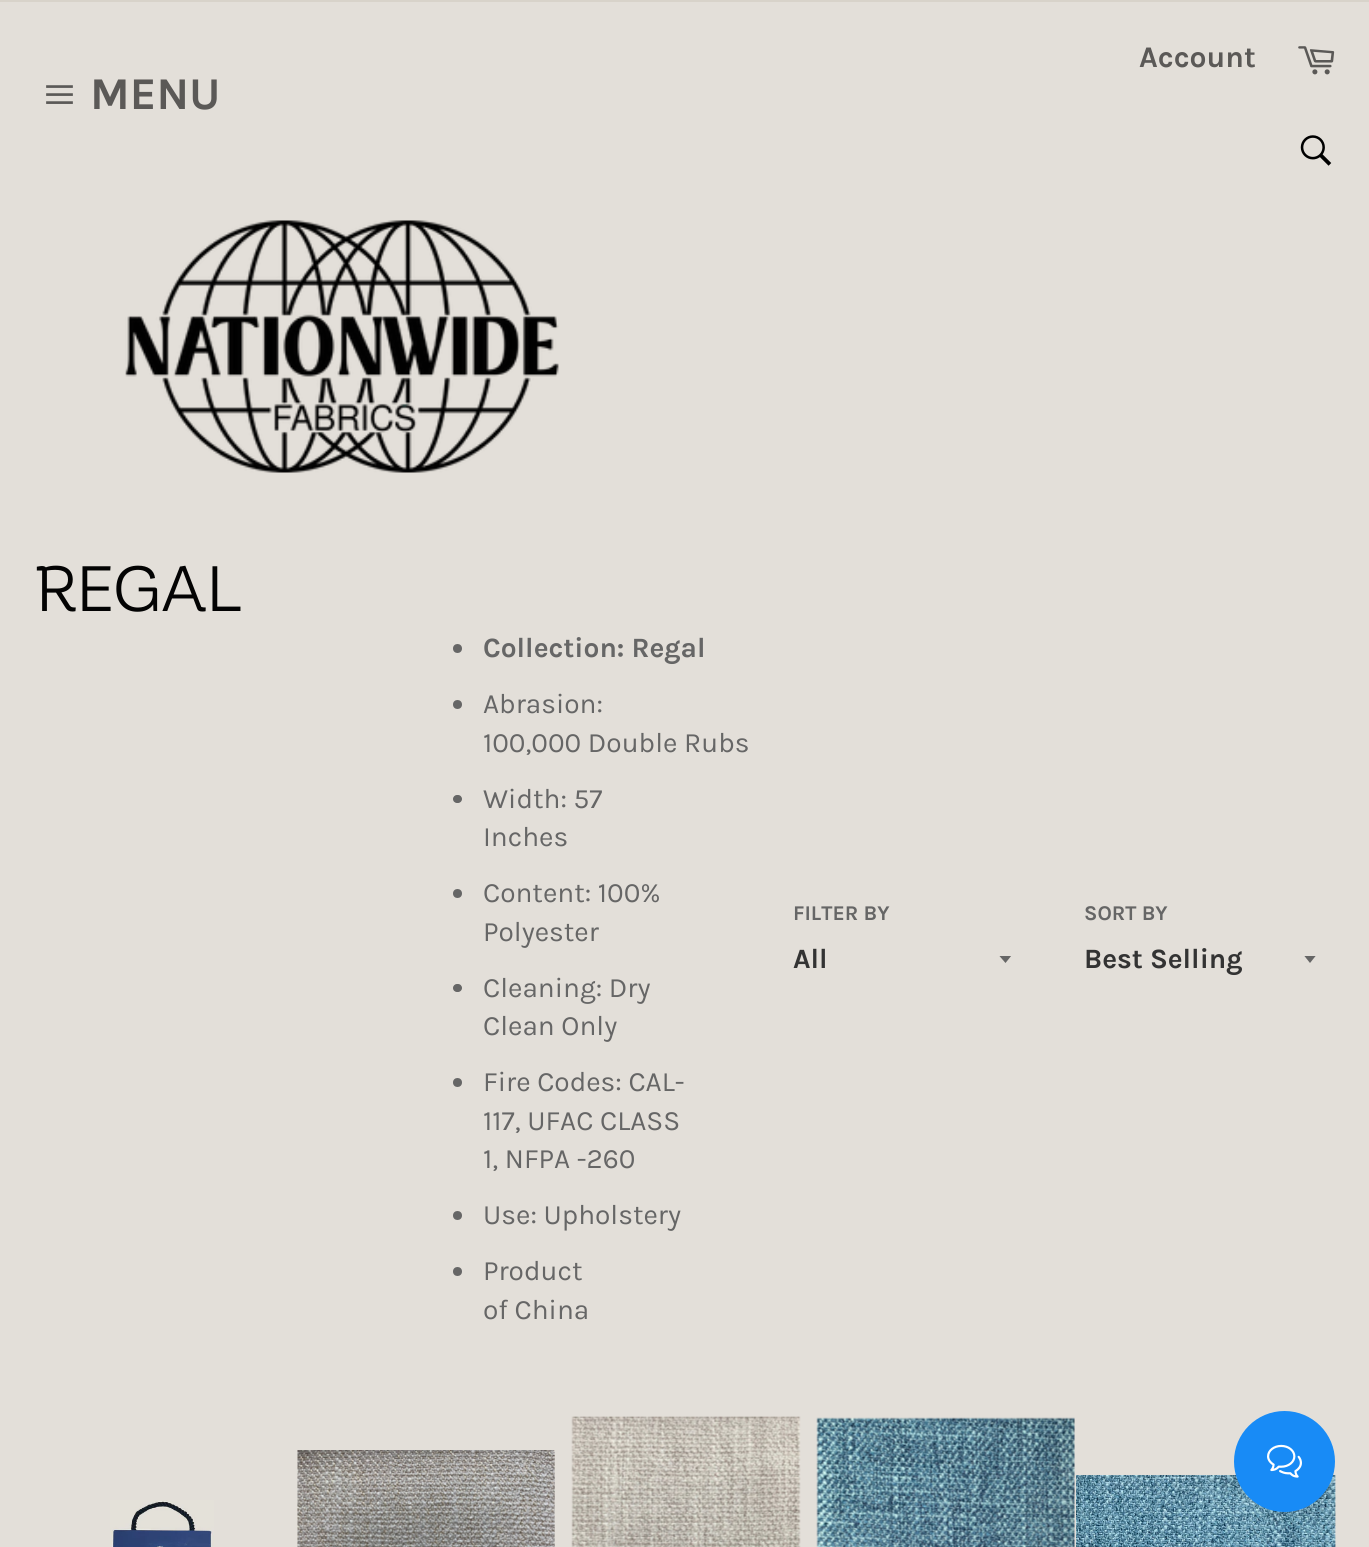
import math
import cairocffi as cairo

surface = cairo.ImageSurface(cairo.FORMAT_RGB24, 1369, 1547)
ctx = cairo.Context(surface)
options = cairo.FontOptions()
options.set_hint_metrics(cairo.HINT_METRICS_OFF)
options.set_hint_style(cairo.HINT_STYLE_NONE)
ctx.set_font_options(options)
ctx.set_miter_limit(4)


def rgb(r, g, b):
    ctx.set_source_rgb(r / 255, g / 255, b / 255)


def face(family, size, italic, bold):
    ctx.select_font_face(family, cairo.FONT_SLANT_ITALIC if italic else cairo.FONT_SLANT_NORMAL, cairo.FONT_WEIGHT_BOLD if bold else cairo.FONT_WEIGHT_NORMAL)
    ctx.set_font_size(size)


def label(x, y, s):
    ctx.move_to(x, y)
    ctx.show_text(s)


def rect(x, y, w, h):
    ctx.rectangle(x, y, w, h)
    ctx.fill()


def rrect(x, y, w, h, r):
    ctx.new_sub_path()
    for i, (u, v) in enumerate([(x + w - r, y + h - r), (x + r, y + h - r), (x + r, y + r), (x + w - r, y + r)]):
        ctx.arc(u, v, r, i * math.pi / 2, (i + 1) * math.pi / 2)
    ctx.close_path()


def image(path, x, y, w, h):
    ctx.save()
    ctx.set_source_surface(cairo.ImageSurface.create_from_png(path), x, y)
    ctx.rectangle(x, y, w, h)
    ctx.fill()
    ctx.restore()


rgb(227, 223, 217)
ctx.paint()
rgb(216, 211, 202)
rect(0, 0, 1369, 2)
face('Karla', 30, 0, 1)
rgb(91, 89, 87)
label(1139, 67, 'Account')
image('image0.png', 1298, 46, 37, 29)
image('image1.png', 1300, 135, 32, 31)
image('image2.png', 46, 85, 27, 19)
face('Karla', 45.5, 0, 1)
label(90, 109, 'MENU')
image('image3.png', 125, 220, 434, 253)
face('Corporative', 63, 0, 0)
rgb(3, 3, 3)
label(35, 611, 'REGAL')
rgb(102, 102, 102)
ctx.new_path()
ctx.arc(457.5, 648.5, 4.5, 0, 2 * math.pi)
ctx.fill()
face('Karla', 28, 0, 1)
label(483, 657, 'Collection: Regal')
ctx.new_path()
ctx.arc(457.5, 704.5, 4.5, 0, 2 * math.pi)
ctx.fill()
face('Karla', 28, 0, 0)
label(483, 713, 'Abrasion:')
label(483, 752, '100,000 Double Rubs')
rrect(453, 795, 9, 8, 4)
ctx.fill()
label(483, 808, 'Width: 57')
label(483, 846, 'Inches')
ctx.new_path()
ctx.arc(457.5, 893.5, 4.5, 0, 2 * math.pi)
ctx.fill()
label(483, 902, 'Content: 100%')
label(483, 941, 'Polyester')
rrect(453, 984, 9, 8, 4)
ctx.fill()
label(483, 997, 'Cleaning: Dry')
label(483, 1035, 'Clean Only')
ctx.new_path()
ctx.arc(457.5, 1082.5, 4.5, 0, 2 * math.pi)
ctx.fill()
label(483, 1091, 'Fire Codes: CAL-')
label(483, 1130, '117, UFAC CLASS')
label(483, 1168, '1, NFPA -260')
ctx.new_path()
ctx.arc(457.5, 1215.5, 4.5, 0, 2 * math.pi)
ctx.fill()
label(483, 1224, 'Use: Upholstery')
ctx.new_path()
ctx.arc(457.5, 1271.5, 4.5, 0, 2 * math.pi)
ctx.fill()
label(483, 1280, 'Product')
label(483, 1319, 'of China')
face('Karla', 21, 0, 1)
label(793, 920, 'FILTER BY')
ctx.save()
ctx.rectangle(999, 956, 14, 8)
ctx.clip()
ctx.new_path()
ctx.move_to(999, 955.5)
ctx.line_to(1005.5, 963)
ctx.line_to(1011.5, 955.5)
ctx.close_path()
ctx.fill()
ctx.restore()
face('Karla', 28, 0, 1)
rgb(51, 51, 51)
label(793, 968, 'All')
face('Karla', 21, 0, 1)
rgb(102, 102, 102)
label(1084, 920, 'SORT BY')
ctx.save()
ctx.rectangle(1304, 956, 14, 8)
ctx.clip()
ctx.new_path()
ctx.move_to(1304, 955.5)
ctx.line_to(1310, 963)
ctx.line_to(1316, 955.5)
ctx.close_path()
ctx.fill()
ctx.restore()
face('Karla', 28, 0, 1)
rgb(51, 51, 51)
label(1084, 968, 'Best Selling')
image('image4.png', 110, 1500, 104, 47)
image('image5.png', 297, 1450, 258, 97)
image('image6.png', 571, 1416, 230, 131)
image('image7.png', 816, 1417, 259, 130)
image('image8.png', 1076, 1475, 260, 72)
rgb(24, 139, 246)
ctx.arc(1284.5, 1461.5, 50.5, 0, 2 * math.pi)
ctx.fill()
image('image9.png', 1267, 1444, 35, 34)
surface.write_to_png('render.png')
